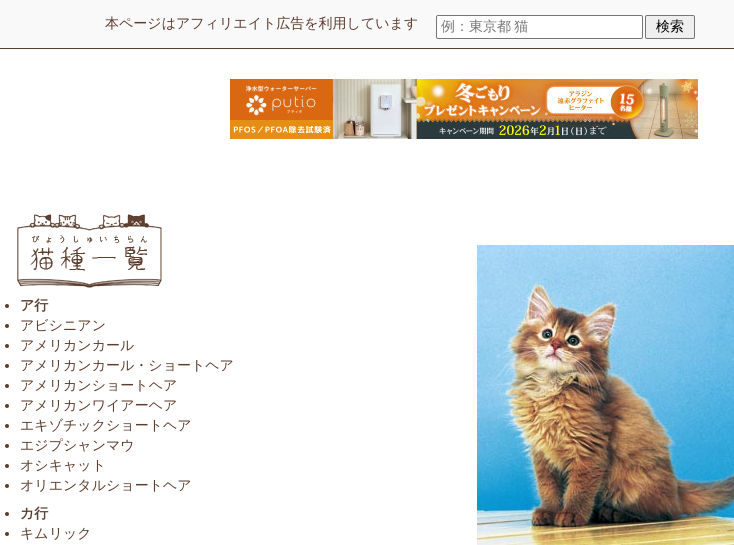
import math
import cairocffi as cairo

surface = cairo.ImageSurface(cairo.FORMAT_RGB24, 734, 545)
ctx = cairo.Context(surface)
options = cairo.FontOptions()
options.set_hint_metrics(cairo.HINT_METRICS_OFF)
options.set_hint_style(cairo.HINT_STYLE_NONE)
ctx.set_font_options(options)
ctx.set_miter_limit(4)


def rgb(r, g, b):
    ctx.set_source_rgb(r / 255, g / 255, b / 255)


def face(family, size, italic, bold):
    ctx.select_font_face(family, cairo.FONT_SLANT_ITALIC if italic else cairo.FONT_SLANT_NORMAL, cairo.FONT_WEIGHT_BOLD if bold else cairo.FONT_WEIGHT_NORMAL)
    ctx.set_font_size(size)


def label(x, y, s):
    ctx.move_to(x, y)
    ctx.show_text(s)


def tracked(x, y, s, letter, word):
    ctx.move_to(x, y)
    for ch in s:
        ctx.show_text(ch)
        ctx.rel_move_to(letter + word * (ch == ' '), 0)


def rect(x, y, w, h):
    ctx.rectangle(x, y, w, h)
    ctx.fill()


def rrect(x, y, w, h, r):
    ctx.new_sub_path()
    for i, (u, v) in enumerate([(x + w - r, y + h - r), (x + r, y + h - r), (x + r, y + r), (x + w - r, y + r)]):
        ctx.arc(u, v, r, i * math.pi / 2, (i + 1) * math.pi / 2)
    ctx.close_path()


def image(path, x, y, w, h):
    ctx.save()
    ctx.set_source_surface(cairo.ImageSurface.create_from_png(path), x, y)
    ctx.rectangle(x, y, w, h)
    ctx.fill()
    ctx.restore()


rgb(255, 255, 255)
ctx.paint()
rgb(249, 249, 249)
rect(0, 0, 734, 48)
rgb(93, 61, 46)
rect(0, 48, 734, 1)
face('WenQuanYi Zen Hei Medium', 14, 0, 0)
label(105, 28, '本ページはアフィリエイト広告を利用しています')
rgb(255, 255, 255)
rrect(436.5, 15.5, 206, 23, 1.5)
ctx.fill_preserve()
rgb(118, 118, 118)
ctx.set_line_width(1)
ctx.stroke()
rgb(117, 117, 117)
tracked(441, 31, '例：東京都 猫', 0, -1)
rgb(239, 239, 239)
rrect(645.5, 15.5, 49, 23, 1.5)
ctx.fill_preserve()
rgb(118, 118, 118)
ctx.stroke()
rgb(0, 0, 0)
label(656, 31, '検索')
image('image0.png', 230, 79, 468, 60)
image('image1.png', 17, 214, 145, 74)
rgb(93, 61, 46)
ctx.arc(7, 306, 2, 0, 2 * math.pi)
ctx.fill()
face('WenQuanYi Zen Hei', 14, 0, 1)
label(20, 310, 'ア行')
ctx.new_path()
ctx.arc(7, 326, 2, 0, 2 * math.pi)
ctx.fill()
face('WenQuanYi Zen Hei Medium', 14, 0, 0)
label(20, 330, 'アビシニアン')
ctx.new_path()
ctx.arc(7, 346, 2, 0, 2 * math.pi)
ctx.fill()
label(20, 350, 'アメリカンカール')
ctx.new_path()
ctx.arc(7, 366, 2, 0, 2 * math.pi)
ctx.fill()
label(20, 370, 'アメリカンカール・ショートヘア')
ctx.new_path()
ctx.arc(7, 386, 2, 0, 2 * math.pi)
ctx.fill()
label(20, 390, 'アメリカンショートヘア')
ctx.new_path()
ctx.arc(7, 406, 2, 0, 2 * math.pi)
ctx.fill()
label(20, 410, 'アメリカンワイアーヘア')
ctx.new_path()
ctx.arc(7, 426, 2, 0, 2 * math.pi)
ctx.fill()
label(20, 430, 'エキゾチックショートヘア')
ctx.new_path()
ctx.arc(7, 446, 2, 0, 2 * math.pi)
ctx.fill()
label(20, 450, 'エジプシャンマウ')
ctx.new_path()
ctx.arc(7, 466, 2, 0, 2 * math.pi)
ctx.fill()
label(20, 470, 'オシキャット')
ctx.new_path()
ctx.arc(7, 486, 2, 0, 2 * math.pi)
ctx.fill()
label(20, 490, 'オリエンタルショートヘア')
ctx.new_path()
ctx.arc(7, 514, 2, 0, 2 * math.pi)
ctx.fill()
face('WenQuanYi Zen Hei', 14, 0, 1)
label(20, 518, 'カ行')
ctx.new_path()
ctx.arc(7, 534, 2, 0, 2 * math.pi)
ctx.fill()
face('WenQuanYi Zen Hei Medium', 14, 0, 0)
label(20, 538, 'キムリック')
image('image2.png', 477, 245, 257, 300)
surface.write_to_png('render.png')
